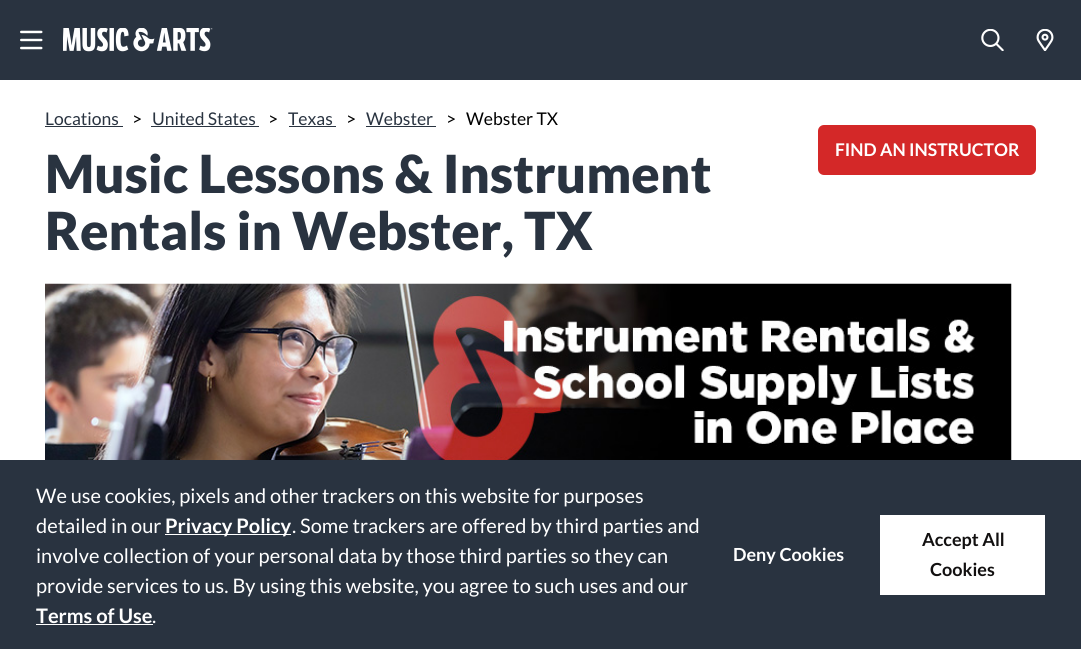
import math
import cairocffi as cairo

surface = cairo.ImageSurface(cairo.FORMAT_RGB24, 1081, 649)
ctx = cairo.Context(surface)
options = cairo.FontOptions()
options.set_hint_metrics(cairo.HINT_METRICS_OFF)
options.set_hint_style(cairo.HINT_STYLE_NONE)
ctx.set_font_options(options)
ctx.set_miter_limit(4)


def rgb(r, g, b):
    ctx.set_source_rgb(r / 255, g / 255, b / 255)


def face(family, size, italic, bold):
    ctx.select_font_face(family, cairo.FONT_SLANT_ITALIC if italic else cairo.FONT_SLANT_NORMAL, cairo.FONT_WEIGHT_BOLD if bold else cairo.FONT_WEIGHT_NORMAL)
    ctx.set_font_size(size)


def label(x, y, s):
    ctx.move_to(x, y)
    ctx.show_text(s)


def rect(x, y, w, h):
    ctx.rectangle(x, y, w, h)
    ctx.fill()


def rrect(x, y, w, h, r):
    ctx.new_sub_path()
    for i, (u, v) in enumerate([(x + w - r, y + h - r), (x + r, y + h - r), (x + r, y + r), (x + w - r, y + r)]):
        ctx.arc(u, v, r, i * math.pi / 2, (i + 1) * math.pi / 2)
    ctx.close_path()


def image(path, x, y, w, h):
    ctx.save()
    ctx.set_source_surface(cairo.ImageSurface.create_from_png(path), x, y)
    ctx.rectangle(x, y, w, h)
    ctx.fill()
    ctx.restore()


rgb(255, 255, 255)
ctx.paint()
rgb(41, 51, 64)
rect(0, 0, 1081, 80)
image('image0.png', 20, 30, 23, 20)
image('image1.png', 63, 28, 150, 24)
image('image2.png', 981, 29, 23, 22)
image('image3.png', 1036, 29, 18, 22)
face('Lato', 17.5, 0, 0)
label(45, 125, 'Locations')
rect(45, 126, 78, 1)
rgb(0, 0, 0)
label(132, 125, '>')
rgb(41, 51, 64)
label(152, 125, 'United States')
rect(151, 126, 108, 1)
rgb(0, 0, 0)
label(268, 125, '>')
rgb(41, 51, 64)
label(288, 125, 'Texas')
rect(289, 126, 47, 1)
rgb(0, 0, 0)
label(346, 125, '>')
rgb(41, 51, 64)
label(366, 125, 'Webster')
rect(366, 126, 70, 1)
rgb(0, 0, 0)
label(446, 125, '>')
label(466, 125, 'Webster TX')
rgb(212, 40, 40)
rrect(818, 125, 218, 50, 6)
ctx.fill()
face('Lato', 17.5, 0, 1)
rgb(255, 255, 255)
label(835, 156, 'FIND AN INSTRUCTOR')
face('Lato Black', 52.5, 0, 0)
rgb(41, 51, 64)
label(45, 193, 'Music Lessons & Instrument')
label(45, 250, 'Rentals in Webster, TX')
image('image4.png', 45, 283, 967, 177)
rect(0, 460, 1081, 189)
face('Lato', 20, 0, 0)
rgb(255, 255, 255)
label(36, 503, 'We use cookies, pixels and other trackers on this website for purposes')
label(36, 533, 'detailed in our')
rect(165, 534, 126, 1)
face('Lato', 20, 0, 1)
label(165, 533, 'Privacy Policy')
face('Lato', 20, 0, 0)
label(292, 533, '. Some trackers are offered by third parties and')
label(36, 563, 'involve collection of your personal data by those third parties so they can')
label(36, 593, 'provide services to us. By using this website, you agree to such uses and our')
face('Lato', 20, 0, 1)
label(36, 623, 'Terms of Use')
rect(36, 624, 117, 1)
face('Lato', 20, 0, 0)
label(152, 623, '.')
face('Lato', 18, 0, 1)
label(733, 561, 'Deny Cookies')
rect(880, 515, 165, 80)
rgb(18, 16, 16)
label(922, 546, 'Accept All')
label(930, 576, 'Cookies')
surface.write_to_png('render.png')
